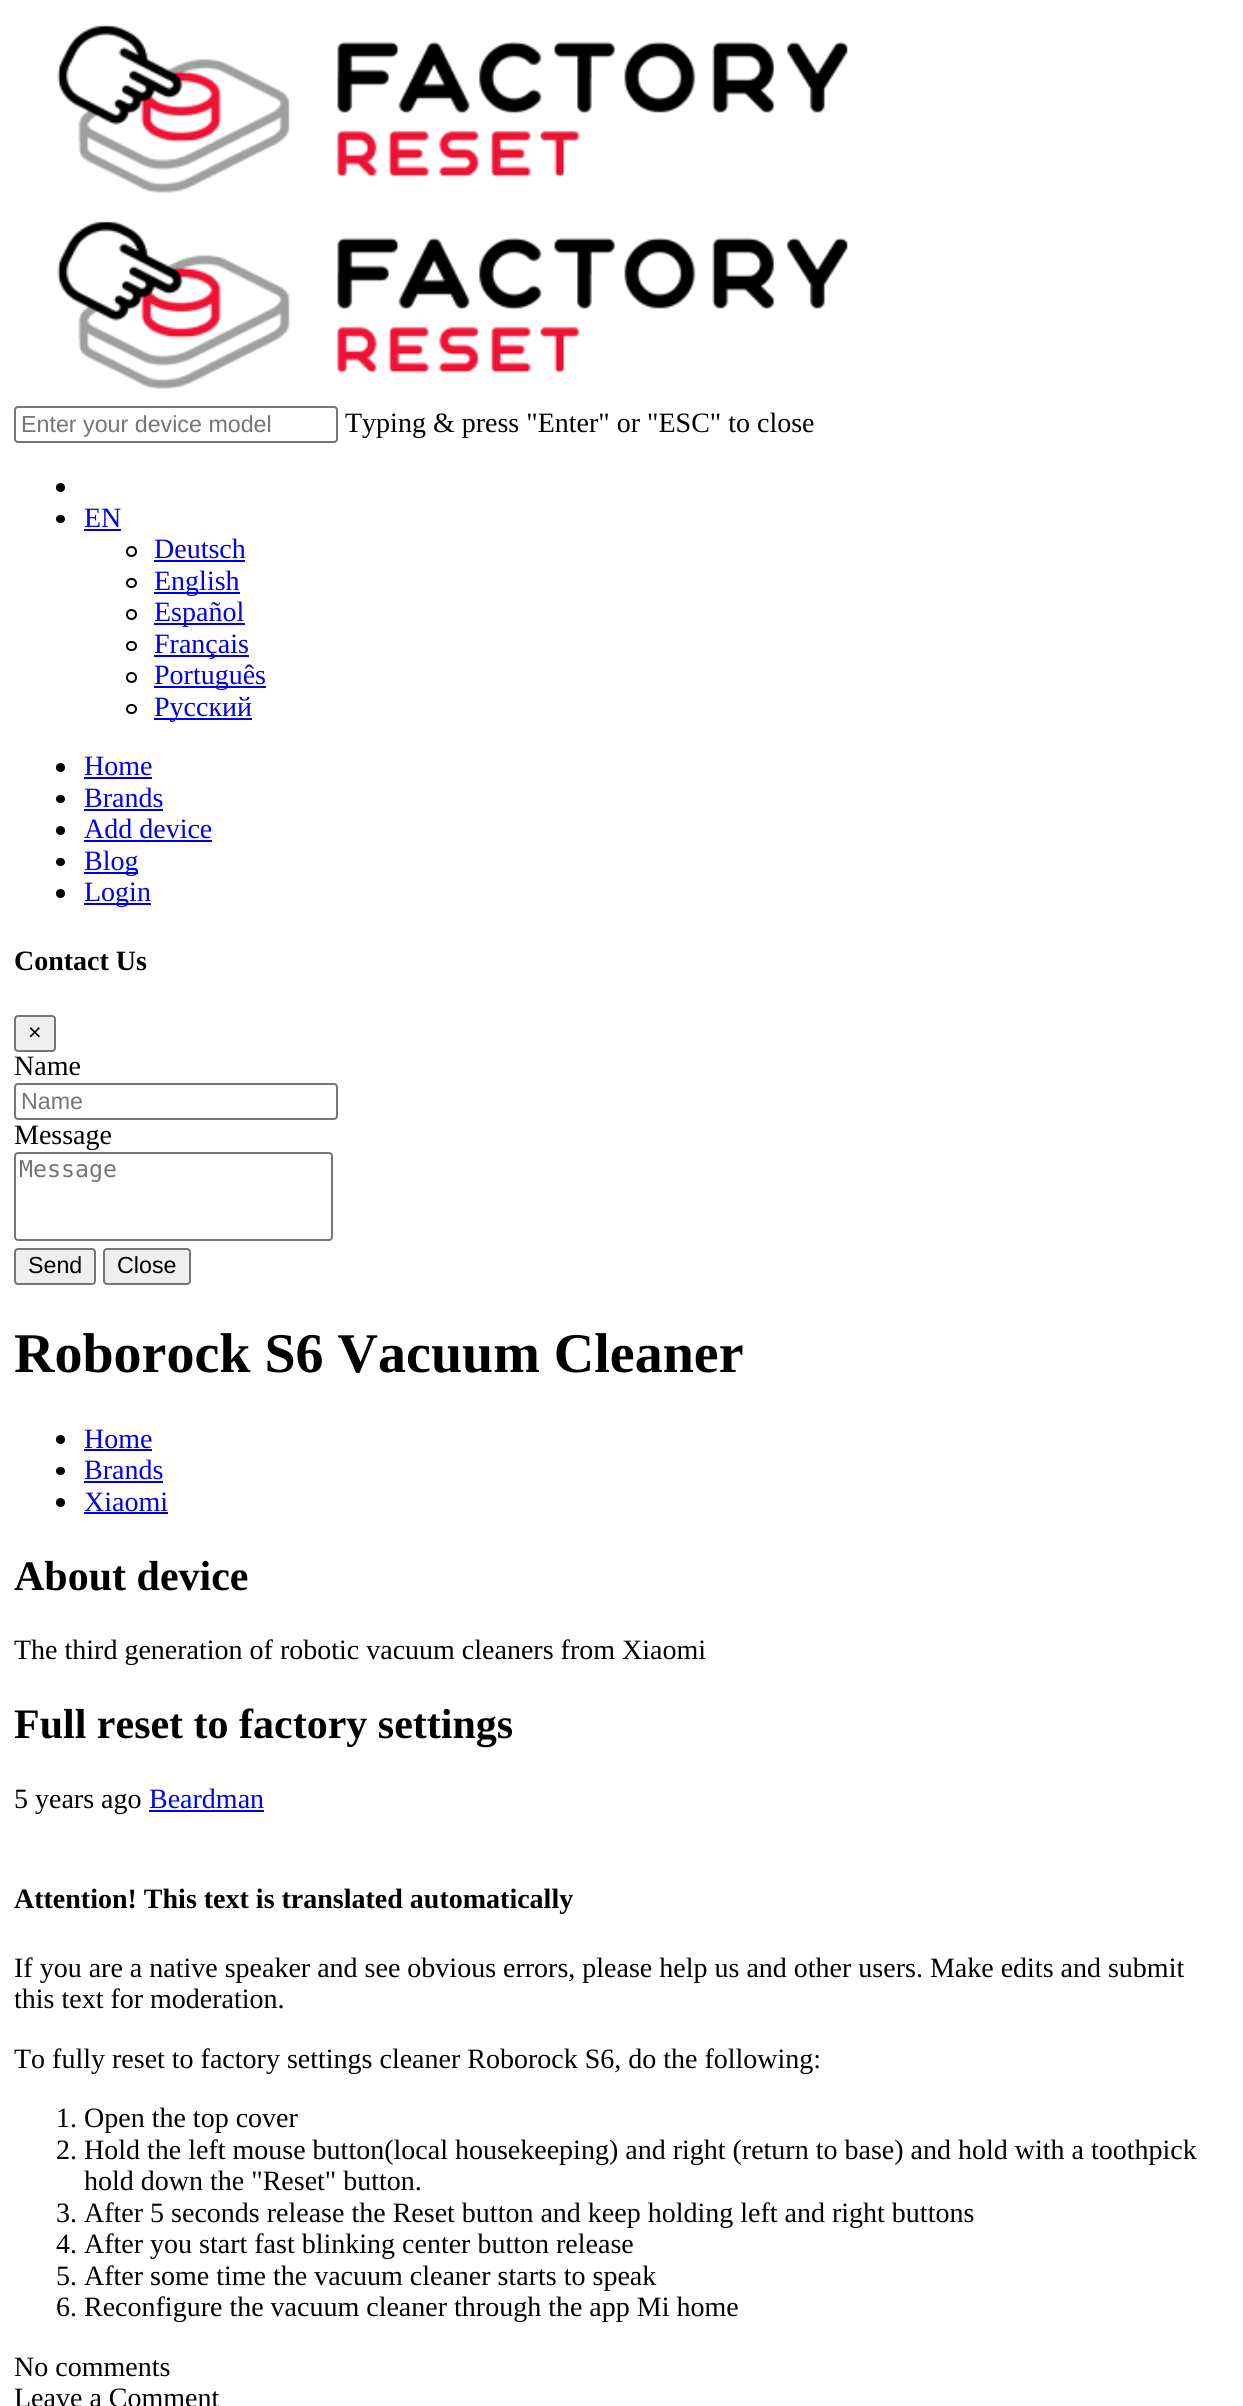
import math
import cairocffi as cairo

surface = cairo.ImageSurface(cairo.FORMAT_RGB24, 1243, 2406)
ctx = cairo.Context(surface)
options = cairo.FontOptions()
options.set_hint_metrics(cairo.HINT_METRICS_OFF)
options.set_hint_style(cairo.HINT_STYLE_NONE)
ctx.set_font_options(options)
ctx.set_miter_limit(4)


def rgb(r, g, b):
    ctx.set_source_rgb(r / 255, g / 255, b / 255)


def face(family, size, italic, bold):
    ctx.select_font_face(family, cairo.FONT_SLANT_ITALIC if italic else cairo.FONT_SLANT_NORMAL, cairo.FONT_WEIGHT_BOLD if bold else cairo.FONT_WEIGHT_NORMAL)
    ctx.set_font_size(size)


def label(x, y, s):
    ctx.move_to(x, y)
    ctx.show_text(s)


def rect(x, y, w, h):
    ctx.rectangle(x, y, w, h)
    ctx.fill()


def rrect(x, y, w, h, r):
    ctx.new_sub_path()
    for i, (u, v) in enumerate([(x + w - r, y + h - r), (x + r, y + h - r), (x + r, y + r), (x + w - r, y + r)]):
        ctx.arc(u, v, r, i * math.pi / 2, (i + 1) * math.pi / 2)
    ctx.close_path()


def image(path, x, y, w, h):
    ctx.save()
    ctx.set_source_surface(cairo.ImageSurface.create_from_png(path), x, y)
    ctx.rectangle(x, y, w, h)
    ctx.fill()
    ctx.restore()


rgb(255, 255, 255)
ctx.paint()
image('image0.png', 57, 24, 792, 169)
image('image1.png', 57, 220, 792, 169)
rrect(15, 407, 322, 35, 3)
rgb(118, 118, 118)
ctx.stroke()
face('Liberation Sans', 23.25, 0, 0)
rgb(117, 117, 117)
label(21, 432, 'Enter your device model')
face('Liberation Serif', 28, 0, 0)
rgb(0, 0, 0)
label(345, 432, 'Typing & press "Enter" or "ESC" to close')
ctx.new_path()
ctx.arc(60.5, 487.5, 4.5, 0, 2 * math.pi)
ctx.fill()
rrect(56, 515, 9, 8, 4)
ctx.fill()
rgb(0, 0, 238)
label(84, 527, 'EN')
rect(84, 529, 37, 2)
ctx.new_path()
ctx.arc(131.5, 551.5, 4.5, 0, 2 * math.pi)
rgb(0, 0, 0)
ctx.stroke()
rgb(0, 0, 238)
label(154, 558, 'Deutsch')
rect(154, 560, 91, 2)
rrect(127, 579, 9, 8, 4)
rgb(0, 0, 0)
ctx.stroke()
rgb(0, 0, 238)
rect(154, 592, 86, 2)
label(154, 590, 'English')
ctx.new_path()
ctx.arc(131.5, 614.5, 4.5, 0, 2 * math.pi)
rgb(0, 0, 0)
ctx.stroke()
rgb(0, 0, 238)
rect(154, 623, 91, 2)
label(154, 621, 'Español')
rrect(127, 642, 9, 8, 4)
rgb(0, 0, 0)
ctx.stroke()
rgb(0, 0, 238)
rect(154, 655, 95, 2)
label(154, 653, 'Français')
ctx.new_path()
ctx.arc(131.5, 677.5, 4.5, 0, 2 * math.pi)
rgb(0, 0, 0)
ctx.stroke()
rgb(0, 0, 238)
rect(154, 686, 112, 2)
label(154, 684, 'Português')
rrect(127, 705, 9, 8, 4)
rgb(0, 0, 0)
ctx.stroke()
rgb(0, 0, 238)
rect(154, 718, 98, 2)
label(154, 716, 'Русский')
rgb(0, 0, 0)
ctx.new_path()
ctx.arc(60.5, 767.5, 4.5, 0, 2 * math.pi)
ctx.fill()
rgb(0, 0, 238)
label(84, 775, 'Home')
rect(84, 777, 68, 2)
rgb(0, 0, 0)
rrect(56, 795, 9, 8, 4)
ctx.fill()
rgb(0, 0, 238)
label(84, 807, 'Brands')
rect(84, 809, 79, 2)
rgb(0, 0, 0)
ctx.new_path()
ctx.arc(60.5, 830.5, 4.5, 0, 2 * math.pi)
ctx.fill()
rgb(0, 0, 238)
label(84, 838, 'Add device')
rect(84, 840, 128, 2)
rgb(0, 0, 0)
rrect(56, 858, 9, 8, 4)
ctx.fill()
rgb(0, 0, 238)
rect(84, 872, 54, 2)
label(84, 870, 'Blog')
rgb(0, 0, 0)
ctx.new_path()
ctx.arc(60.5, 893.5, 4.5, 0, 2 * math.pi)
ctx.fill()
rgb(0, 0, 238)
rect(84, 903, 67, 2)
label(84, 901, 'Login')
face('Liberation Serif', 28, 0, 1)
rgb(0, 0, 0)
label(14, 970, 'Contact Us')
rgb(239, 239, 239)
rrect(15, 1016, 40, 35, 3)
ctx.fill_preserve()
rgb(118, 118, 118)
ctx.stroke()
face('Liberation Sans', 23.25, 0, 0)
rgb(0, 0, 0)
label(28, 1040, '×')
face('Liberation Serif', 28, 0, 0)
label(14, 1075, 'Name')
rrect(15, 1084, 322, 35, 3)
rgb(118, 118, 118)
ctx.stroke()
face('Liberation Sans', 23.25, 0, 0)
rgb(117, 117, 117)
label(21, 1109, 'Name')
face('Liberation Serif', 28, 0, 0)
rgb(0, 0, 0)
label(14, 1144, 'Message')
rrect(15, 1153, 317, 87, 3)
rgb(118, 118, 118)
ctx.stroke()
face('DejaVu Sans Mono', 23.25, 0, 0)
rgb(117, 117, 117)
label(19, 1177, 'Message')
rgb(239, 239, 239)
rrect(15, 1249, 80, 35, 3)
ctx.fill_preserve()
rgb(118, 118, 118)
ctx.stroke()
face('Liberation Sans', 23.25, 0, 0)
rgb(0, 0, 0)
label(28, 1273, 'Send')
rgb(239, 239, 239)
rrect(104, 1249, 86, 35, 3)
ctx.fill_preserve()
rgb(118, 118, 118)
ctx.stroke()
rgb(0, 0, 0)
label(117, 1273, 'Close')
face('Liberation Serif', 56, 0, 1)
label(14, 1372, 'Roborock S6 Vacuum Cleaner')
ctx.new_path()
ctx.arc(60.5, 1439.5, 4.5, 0, 2 * math.pi)
ctx.fill()
face('Liberation Serif', 28, 0, 0)
rgb(0, 0, 238)
label(84, 1448, 'Home')
rect(84, 1449, 68, 2)
rgb(0, 0, 0)
rrect(56, 1467, 9, 8, 4)
ctx.fill()
rgb(0, 0, 238)
label(84, 1479, 'Brands')
rect(84, 1481, 79, 2)
rgb(0, 0, 0)
ctx.new_path()
ctx.arc(60.5, 1502.5, 4.5, 0, 2 * math.pi)
ctx.fill()
rgb(0, 0, 238)
label(84, 1511, 'Xiaomi')
rect(84, 1512, 84, 2)
face('Liberation Serif', 42, 0, 1)
rgb(0, 0, 0)
label(14, 1590, 'About device')
face('Liberation Serif', 28, 0, 0)
label(14, 1659, 'The third generation of robotic vacuum cleaners from Xiaomi')
face('Liberation Serif', 42, 0, 1)
label(14, 1738, 'Full reset to factory settings')
face('Liberation Serif', 28, 0, 0)
label(14, 1808, '5 years ago')
rgb(0, 0, 238)
label(149, 1808, 'Beardman')
rect(149, 1810, 115, 2)
face('Liberation Serif', 28, 0, 1)
rgb(0, 0, 0)
label(14, 1908, 'Attention! This text is translated automatically')
face('Liberation Serif', 28, 0, 0)
label(14, 1977, 'If you are a native speaker and see obvious errors, please help us and other users. Make edits and submit')
label(14, 2008, 'this text for moderation.')
label(14, 2068, 'To fully reset to factory settings cleaner Roborock S6, do the following:')
label(56, 2127, '1. Open the top cover')
label(56, 2159, '2. Hold the left mouse button(local housekeeping) and right (return to base) and hold with a toothpick')
label(84, 2190, 'hold down the "Reset" button.')
label(56, 2222, '3. After 5 seconds release the Reset button and keep holding left and right buttons')
label(56, 2253, '4. After you start fast blinking center button release')
label(56, 2285, '5. After some time the vacuum cleaner starts to speak')
label(56, 2316, '6. Reconfigure the vacuum cleaner through the app Mi home')
label(14, 2376, 'No comments')
label(14, 2407, 'Leave a Comment')
surface.write_to_png('render.png')
